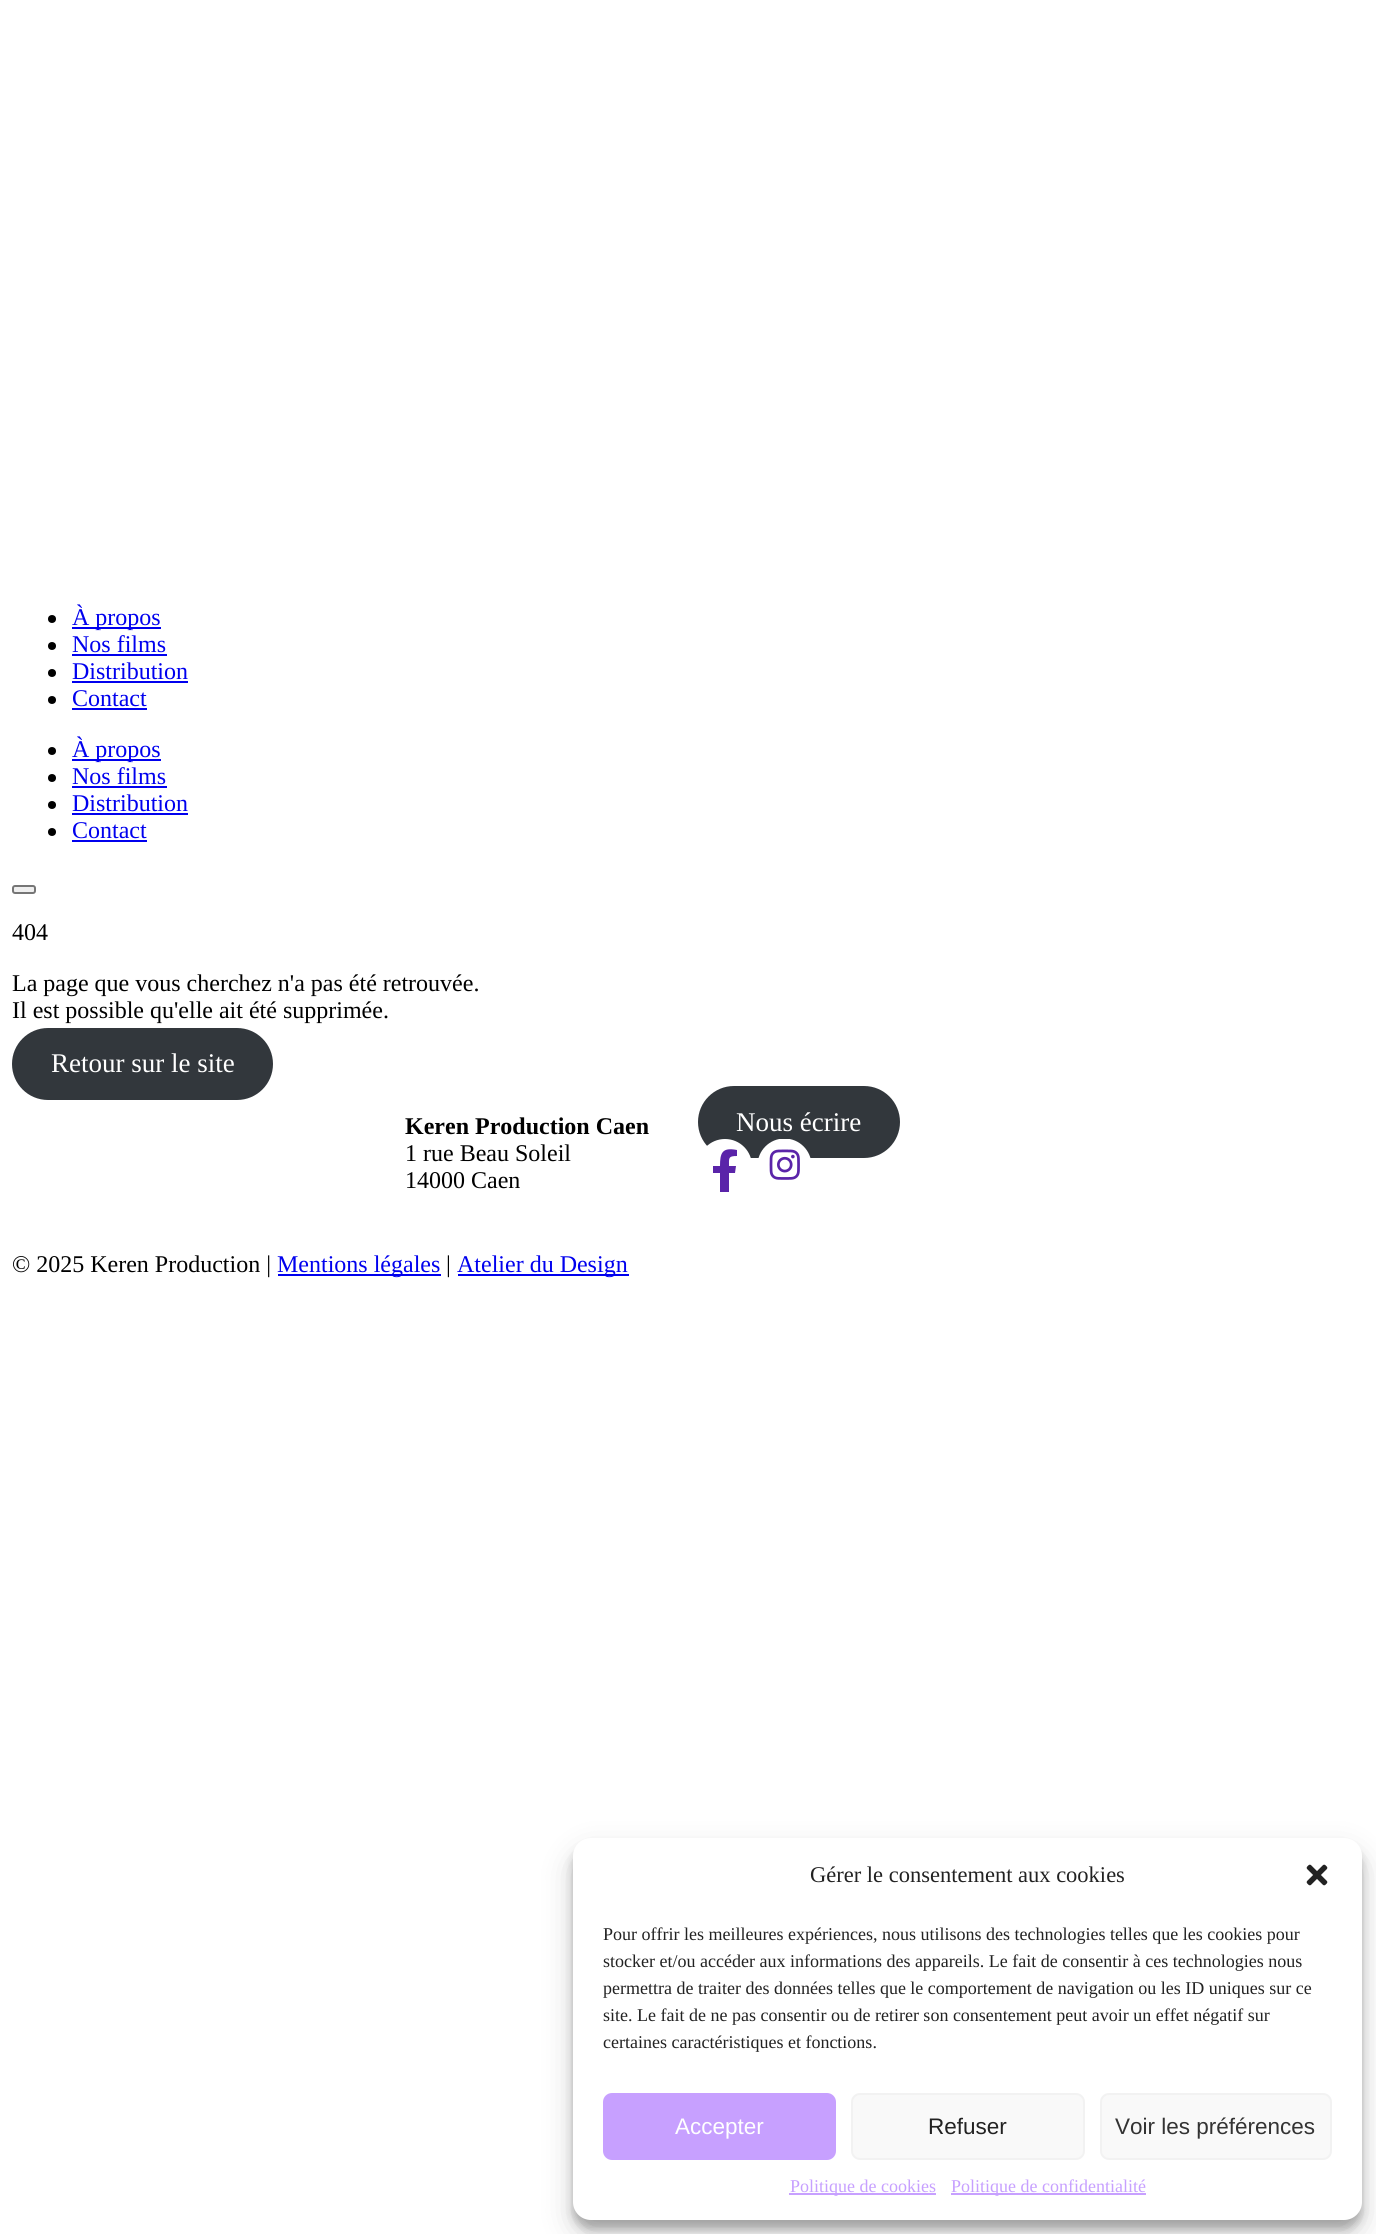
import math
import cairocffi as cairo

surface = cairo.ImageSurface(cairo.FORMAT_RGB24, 1376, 2234)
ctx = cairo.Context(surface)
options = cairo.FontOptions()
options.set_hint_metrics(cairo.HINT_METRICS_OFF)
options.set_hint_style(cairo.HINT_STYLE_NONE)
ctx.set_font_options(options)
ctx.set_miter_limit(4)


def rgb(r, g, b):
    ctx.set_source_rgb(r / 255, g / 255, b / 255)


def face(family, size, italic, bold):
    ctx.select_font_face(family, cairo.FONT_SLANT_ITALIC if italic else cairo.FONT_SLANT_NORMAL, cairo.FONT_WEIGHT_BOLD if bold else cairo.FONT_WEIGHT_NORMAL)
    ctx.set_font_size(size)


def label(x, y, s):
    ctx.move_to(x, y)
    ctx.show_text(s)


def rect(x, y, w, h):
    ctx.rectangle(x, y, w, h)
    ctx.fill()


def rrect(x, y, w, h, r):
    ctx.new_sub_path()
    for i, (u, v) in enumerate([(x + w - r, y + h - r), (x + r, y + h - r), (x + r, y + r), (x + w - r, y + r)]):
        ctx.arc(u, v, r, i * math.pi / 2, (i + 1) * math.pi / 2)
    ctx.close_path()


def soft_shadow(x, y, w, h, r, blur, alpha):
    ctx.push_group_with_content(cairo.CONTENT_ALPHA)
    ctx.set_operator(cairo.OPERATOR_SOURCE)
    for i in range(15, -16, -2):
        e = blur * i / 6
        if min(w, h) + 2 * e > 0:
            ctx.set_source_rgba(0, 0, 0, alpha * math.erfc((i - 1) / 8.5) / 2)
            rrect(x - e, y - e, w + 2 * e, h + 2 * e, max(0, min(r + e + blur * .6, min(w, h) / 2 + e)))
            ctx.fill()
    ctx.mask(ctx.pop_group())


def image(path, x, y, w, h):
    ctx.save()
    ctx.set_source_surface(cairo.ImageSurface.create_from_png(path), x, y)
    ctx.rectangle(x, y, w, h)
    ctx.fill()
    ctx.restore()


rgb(255, 255, 255)
ctx.paint()
rgb(0, 0, 0)
ctx.arc(52, 619, 4, 0, 2 * math.pi)
ctx.fill()
rgb(0, 0, 238)
rect(72, 627, 89, 2)
face('Liberation Serif', 24, 0, 0)
label(72, 625, 'À propos')
rgb(0, 0, 0)
ctx.new_path()
ctx.arc(52, 646, 4, 0, 2 * math.pi)
ctx.fill()
rgb(0, 0, 238)
label(72, 652, 'Nos films')
rect(72, 654, 95, 2)
rgb(0, 0, 0)
ctx.new_path()
ctx.arc(52, 673, 4, 0, 2 * math.pi)
ctx.fill()
rgb(0, 0, 238)
label(72, 679, 'Distribution')
rect(72, 681, 116, 2)
rgb(0, 0, 0)
ctx.new_path()
ctx.arc(52, 700, 4, 0, 2 * math.pi)
ctx.fill()
rgb(0, 0, 238)
label(72, 706, 'Contact')
rect(72, 708, 75, 2)
rgb(0, 0, 0)
ctx.new_path()
ctx.arc(52, 751, 4, 0, 2 * math.pi)
ctx.fill()
rgb(0, 0, 238)
rect(72, 759, 89, 2)
label(72, 757, 'À propos')
rgb(0, 0, 0)
ctx.new_path()
ctx.arc(52, 778, 4, 0, 2 * math.pi)
ctx.fill()
rgb(0, 0, 238)
label(72, 784, 'Nos films')
rect(72, 786, 95, 2)
rgb(0, 0, 0)
ctx.new_path()
ctx.arc(52, 805, 4, 0, 2 * math.pi)
ctx.fill()
rgb(0, 0, 238)
label(72, 811, 'Distribution')
rect(72, 813, 116, 2)
rgb(0, 0, 0)
ctx.new_path()
ctx.arc(52, 832, 4, 0, 2 * math.pi)
ctx.fill()
rgb(0, 0, 238)
label(72, 838, 'Contact')
rect(72, 840, 75, 2)
rgb(239, 239, 239)
rrect(13, 886, 22, 7, 2)
ctx.fill_preserve()
rgb(118, 118, 118)
ctx.stroke()
rgb(0, 0, 0)
label(12, 940, '404')
label(12, 991, 'La page que vous cherchez n\'a pas été retrouvée.')
label(12, 1018, 'Il est possible qu\'elle ait été supprimée.')
rgb(50, 55, 60)
rrect(12, 1028, 261, 72, 36)
ctx.fill()
face('Liberation Serif', 27, 0, 0)
rgb(255, 255, 255)
label(51, 1072, 'Retour sur le site')
face('Liberation Serif', 24, 0, 1)
rgb(0, 0, 0)
label(405, 1134, 'Keren Production Caen')
face('Liberation Serif', 24, 0, 0)
label(405, 1161, '1 rue Beau Soleil')
label(405, 1188, '14000 Caen')
rgb(50, 55, 60)
rrect(698, 1086, 202, 72, 36)
ctx.fill()
face('Liberation Serif', 27, 0, 0)
rgb(255, 255, 255)
label(736, 1131, 'Nous écrire')
ctx.new_path()
ctx.arc(725, 1166, 27, 0, 2 * math.pi)
ctx.fill()
image('image0.png', 758, 1139, 53, 41)
rgb(90, 36, 169)
ctx.new_path()
ctx.move_to(735, 1173)
ctx.line_to(736, 1166)
ctx.line_to(729, 1166)
ctx.curve_to(729, 1158, 728, 1156, 737, 1156)
ctx.line_to(737, 1150)
ctx.curve_to(722, 1147, 720, 1153, 720, 1166)
ctx.line_to(713, 1166)
ctx.line_to(713, 1173)
ctx.line_to(720, 1173)
ctx.line_to(720, 1192)
ctx.line_to(729, 1192)
ctx.line_to(729, 1173)
ctx.close_path()
ctx.fill()
face('Liberation Serif', 24, 0, 0)
rgb(0, 0, 0)
label(12, 1272, '© 2025 Keren Production |')
rgb(0, 0, 238)
rect(278, 1274, 163, 2)
label(277, 1272, 'Mentions légales')
rgb(0, 0, 0)
label(446, 1272, '|')
rgb(0, 0, 238)
rect(458, 1274, 171, 2)
label(457, 1272, 'Atelier du Design')
rgb(0, 0, 0)
soft_shadow(573, 1847, 789, 382, 18, 4.5, 0.23)
soft_shadow(573, 1853, 789, 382, 18, 15, 0.19)
rgb(255, 255, 255)
rrect(573, 1838, 789, 382, 18)
ctx.fill()
face('Liberation Serif', 22.5, 0, 0)
rgb(34, 34, 34)
label(810, 1882, 'Gérer le consentement aux cookies')
image('image1.png', 1306, 1864, 22, 22)
face('Liberation Serif', 18, 0, 0)
label(603, 1940, 'Pour offrir les meilleures expériences, nous utilisons des technologies telles que les cookies pour')
label(603, 1967, 'stocker et/ou accéder aux informations des appareils. Le fait de consentir à ces technologies nous')
label(603, 1994, 'permettra de traiter des données telles que le comportement de navigation ou les ID uniques sur ce')
label(603, 2021, 'site. Le fait de ne pas consentir ou de retirer son consentement peut avoir un effet négatif sur')
label(603, 2048, 'certaines caractéristiques et fonctions.')
rgb(199, 160, 255)
rrect(604, 2094, 231, 65, 8)
ctx.fill_preserve()
ctx.stroke()
face('Liberation Sans', 22.5, 0, 0)
rgb(255, 255, 255)
label(675, 2134, 'Accepter')
rgb(249, 249, 249)
rrect(852, 2094, 232, 65, 8)
ctx.fill_preserve()
rgb(242, 242, 242)
ctx.stroke()
rgb(34, 34, 34)
label(928, 2134, 'Refuser')
rgb(249, 249, 249)
rrect(1101, 2094, 230, 65, 8)
ctx.fill_preserve()
rgb(242, 242, 242)
ctx.stroke()
rgb(51, 51, 51)
label(1115, 2134, 'Voir les préférences')
rgb(199, 160, 255)
rect(789, 2193, 147, 2)
face('Liberation Serif', 18, 0, 0)
label(790, 2192, 'Politique de cookies')
rect(951, 2193, 195, 2)
label(951, 2192, 'Politique de confidentialité')
surface.write_to_png('render.png')
